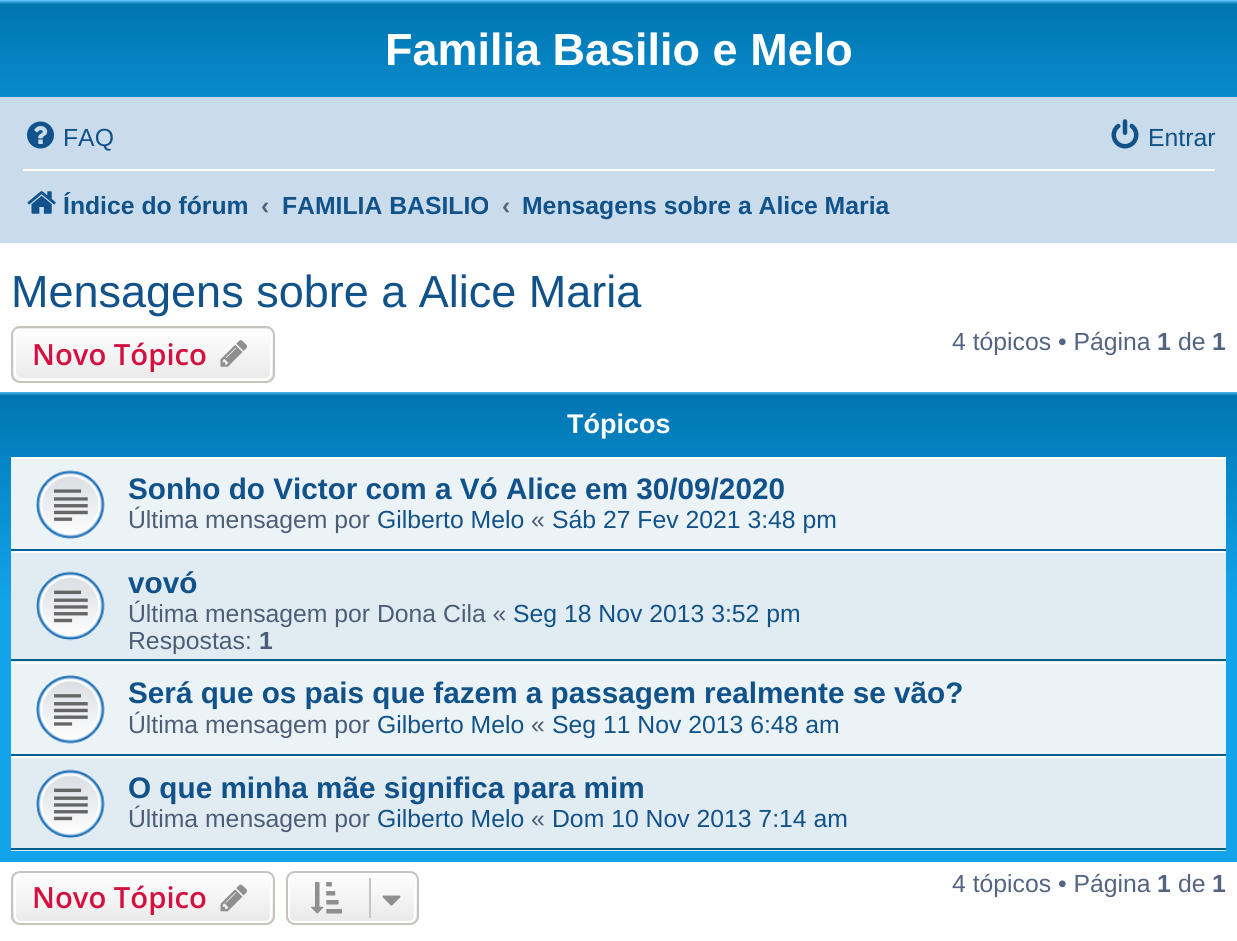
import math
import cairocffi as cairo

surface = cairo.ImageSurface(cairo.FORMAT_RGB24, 1237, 941)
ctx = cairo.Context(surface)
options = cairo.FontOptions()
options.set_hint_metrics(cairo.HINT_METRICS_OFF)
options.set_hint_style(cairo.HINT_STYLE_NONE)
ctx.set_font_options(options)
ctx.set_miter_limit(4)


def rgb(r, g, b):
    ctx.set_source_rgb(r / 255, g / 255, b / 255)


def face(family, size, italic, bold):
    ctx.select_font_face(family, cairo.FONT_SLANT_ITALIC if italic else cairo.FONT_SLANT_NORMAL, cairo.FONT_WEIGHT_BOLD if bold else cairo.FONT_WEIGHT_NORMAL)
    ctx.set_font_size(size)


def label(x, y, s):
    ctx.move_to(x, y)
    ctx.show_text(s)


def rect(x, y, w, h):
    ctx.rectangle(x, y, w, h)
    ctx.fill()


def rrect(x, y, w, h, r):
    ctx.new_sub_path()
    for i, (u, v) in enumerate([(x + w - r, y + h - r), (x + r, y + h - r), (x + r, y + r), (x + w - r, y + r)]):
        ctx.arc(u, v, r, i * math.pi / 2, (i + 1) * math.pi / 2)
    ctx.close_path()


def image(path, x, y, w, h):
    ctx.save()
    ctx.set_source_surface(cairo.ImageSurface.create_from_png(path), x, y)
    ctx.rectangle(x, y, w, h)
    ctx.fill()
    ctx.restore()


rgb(255, 255, 255)
ctx.paint()
gradient = cairo.LinearGradient(619, 0, 619, 207)
gradient.add_color_stop_rgba(0, 0.416, 0.808, 1, 1)
gradient.add_color_stop_rgba(0.02, 0, 0.463, 0.694, 1)
gradient.add_color_stop_rgba(1, 0.071, 0.639, 0.922, 1)
ctx.set_source(gradient)
rect(0, 0, 1237, 97)
face('Liberation Sans', 45, 0, 1)
rgb(255, 255, 255)
label(385, 65, 'Familia Basilio e Melo')
rgb(202, 220, 235)
rect(0, 97, 1237, 146)
image('image0.png', 27, 121, 27, 28)
face('Liberation Sans', 24.75, 0, 0)
rgb(16, 82, 137)
label(63, 146, 'FAQ')
image('image1.png', 1111, 119, 28, 30)
label(1148, 146, 'Entrar')
rgb(255, 255, 255)
rect(23, 169, 1192, 2)
image('image2.png', 27, 191, 29, 23)
face('Liberation Sans', 24.75, 0, 1)
rgb(16, 82, 137)
label(63, 214, 'Índice do fórum')
rgb(83, 100, 130)
label(261, 214, '‹')
ctx.save()
ctx.rectangle(281, 178, 207, 54)
ctx.clip()
rgb(16, 82, 137)
label(282, 214, 'FAMILIA BASILIO')
ctx.restore()
label(502, 214, '‹')
rgb(16, 82, 137)
label(522, 214, 'Mensagens sobre a Alice Maria')
face('Liberation Sans', 45, 0, 0)
label(11, 307, 'Mensagens sobre a Alice Maria')
ctx.save()
rrect(11, 326, 264, 57, 9)
ctx.clip()
gradient = cairo.LinearGradient(143, 277, 143, 329)
gradient.add_color_stop_rgba(0, 1, 1, 1, 1)
gradient.add_color_stop_rgba(1, 0.914, 0.914, 0.914, 1)
ctx.set_source(gradient)
rect(11, 326, 264, 3)
gradient = cairo.LinearGradient(143, 329, 143, 380)
gradient.add_color_stop_rgba(0, 1, 1, 1, 1)
gradient.add_color_stop_rgba(1, 0.914, 0.914, 0.914, 1)
ctx.set_source(gradient)
rect(11, 329, 264, 51)
ctx.restore()
rrect(15, 330, 256, 49, 6)
rgb(255, 255, 255)
ctx.stroke()
rrect(12, 327, 262, 55, 8)
rgb(199, 195, 191)
ctx.stroke()
face('Open Sans SemiBold', 29.25, 0, 0)
rgb(211, 17, 65)
label(32, 365, 'Novo Tópico')
image('image3.png', 220, 340, 28, 27)
face('Liberation Sans', 24.75, 0, 0)
rgb(83, 100, 130)
label(952, 350, '4 tópicos • Página')
face('Liberation Sans', 24.75, 0, 1)
label(1157, 350, '1')
face('Liberation Sans', 24.75, 0, 0)
label(1178, 350, 'de')
face('Liberation Sans', 24.75, 0, 1)
label(1212, 350, '1')
gradient = cairo.LinearGradient(619, 391, 619, 862)
gradient.add_color_stop_rgba(0, 0.416, 0.808, 1, 1)
gradient.add_color_stop_rgba(0.01, 0, 0.463, 0.694, 1)
gradient.add_color_stop_rgba(0.44, 0.071, 0.639, 0.922, 1)
gradient.add_color_stop_rgba(1, 0.071, 0.639, 0.922, 1)
ctx.set_source(gradient)
rect(0, 392, 1237, 470)
face('Liberation Sans', 27, 0, 1)
rgb(255, 255, 255)
label(567, 433, 'Tópicos')
rgb(236, 243, 247)
rect(11, 459, 1215, 90)
rgb(255, 255, 255)
rect(11, 457, 1215, 2)
rgb(0, 96, 143)
rect(11, 549, 1215, 2)
image('image4.png', 36, 470, 69, 69)
face('Liberation Sans', 29.7, 0, 1)
rgb(16, 82, 137)
label(128, 499, 'Sonho do Victor com a Vó Alice em 30/09/2020')
face('Liberation Sans', 24.75, 0, 0)
rgb(76, 93, 119)
label(128, 528, 'Última mensagem por')
rgb(16, 82, 137)
label(377, 528, 'Gilberto Melo')
rgb(76, 93, 119)
label(531, 528, '«')
rgb(16, 82, 137)
label(552, 528, 'Sáb 27 Fev 2021 3:48 pm')
rgb(225, 235, 242)
rect(11, 553, 1215, 109)
rgb(255, 255, 255)
rect(11, 551, 1215, 2)
rgb(0, 96, 143)
rect(11, 659, 1215, 2)
image('image5.png', 36, 571, 69, 70)
face('Liberation Sans', 29.7, 0, 1)
rgb(16, 82, 137)
label(128, 593, 'vovó')
face('Liberation Sans', 24.75, 0, 0)
rgb(76, 93, 119)
label(128, 622, 'Última mensagem por Dona Cila «')
rgb(16, 82, 137)
label(513, 622, 'Seg 18 Nov 2013 3:52 pm')
rgb(76, 93, 119)
label(128, 649, 'Respostas:')
face('Liberation Sans', 24.75, 0, 1)
label(259, 649, '1')
rgb(236, 243, 247)
rect(11, 664, 1215, 90)
rgb(255, 255, 255)
rect(11, 662, 1215, 2)
rgb(0, 96, 143)
rect(11, 754, 1215, 2)
image('image6.png', 36, 675, 69, 69)
face('Liberation Sans', 29.7, 0, 1)
rgb(16, 82, 137)
label(128, 703, 'Será que os pais que fazem a passagem realmente se vão?')
face('Liberation Sans', 24.75, 0, 0)
rgb(76, 93, 119)
label(128, 733, 'Última mensagem por')
rgb(16, 82, 137)
label(377, 733, 'Gilberto Melo')
rgb(76, 93, 119)
label(531, 733, '«')
rgb(16, 82, 137)
label(552, 733, 'Seg 11 Nov 2013 6:48 am')
rgb(225, 235, 242)
rect(11, 758, 1215, 93)
rgb(255, 255, 255)
rect(11, 756, 1215, 2)
rgb(0, 96, 143)
rect(11, 848, 1215, 2)
image('image7.png', 36, 769, 69, 70)
face('Liberation Sans', 29.7, 0, 1)
rgb(16, 82, 137)
label(128, 798, 'O que minha mãe significa para mim')
face('Liberation Sans', 24.75, 0, 0)
rgb(76, 93, 119)
label(128, 827, 'Última mensagem por')
rgb(16, 82, 137)
label(377, 827, 'Gilberto Melo')
rgb(76, 93, 119)
label(531, 827, '«')
rgb(16, 82, 137)
label(552, 827, 'Dom 10 Nov 2013 7:14 am')
ctx.save()
rrect(11, 871, 264, 54, 9)
ctx.clip()
gradient = cairo.LinearGradient(143, 873, 143, 923)
gradient.add_color_stop_rgba(0, 1, 1, 1, 1)
gradient.add_color_stop_rgba(1, 0.914, 0.914, 0.914, 1)
ctx.set_source(gradient)
rect(11, 873, 264, 50)
ctx.restore()
rrect(15, 874, 256, 48, 6)
rgb(255, 255, 255)
ctx.stroke()
rrect(12, 872, 262, 52, 8)
rgb(199, 195, 191)
ctx.stroke()
face('Open Sans SemiBold', 29.25, 0, 0)
rgb(211, 17, 65)
label(32, 908, 'Novo Tópico')
image('image8.png', 220, 884, 28, 28)
ctx.save()
rrect(286, 871, 133, 54, 9)
ctx.clip()
gradient = cairo.LinearGradient(352, 873, 352, 923)
gradient.add_color_stop_rgba(0, 1, 1, 1, 1)
gradient.add_color_stop_rgba(1, 0.914, 0.914, 0.914, 1)
ctx.set_source(gradient)
rect(286, 873, 133, 50)
ctx.restore()
rrect(289, 874, 126, 48, 6)
rgb(255, 255, 255)
ctx.stroke()
rrect(287, 872, 131, 52, 8)
rgb(199, 195, 191)
ctx.stroke()
image('image9.png', 311, 882, 31, 32)
rect(369, 878, 2, 40)
image('image10.png', 382, 895, 19, 11)
face('Liberation Sans', 24.75, 0, 0)
rgb(83, 100, 130)
label(952, 892, '4 tópicos • Página')
face('Liberation Sans', 24.75, 0, 1)
label(1157, 892, '1')
face('Liberation Sans', 24.75, 0, 0)
label(1178, 892, 'de')
face('Liberation Sans', 24.75, 0, 1)
label(1212, 892, '1')
surface.write_to_png('render.png')
